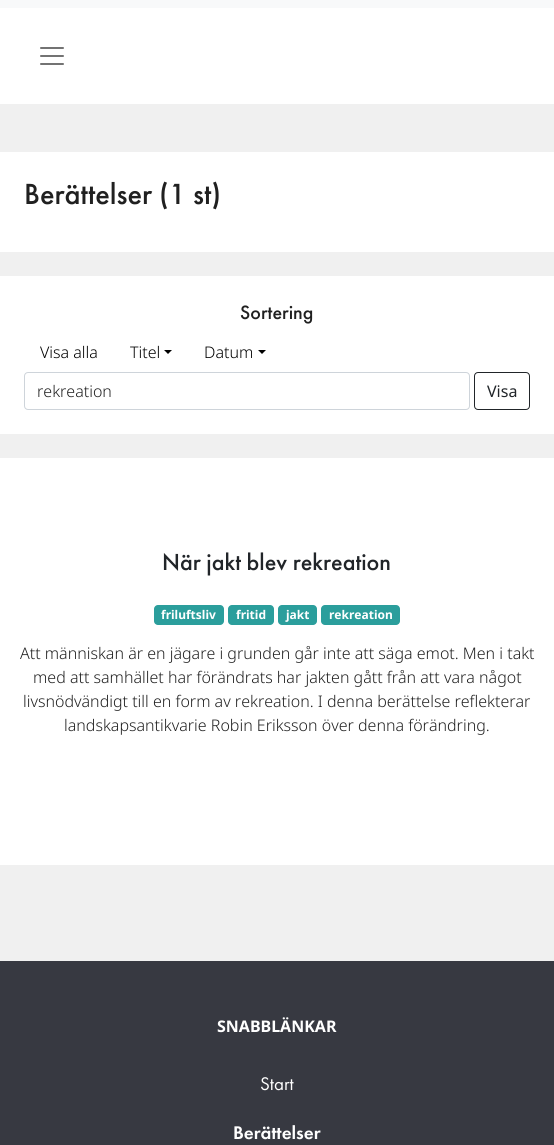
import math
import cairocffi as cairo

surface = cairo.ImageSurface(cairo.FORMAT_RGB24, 554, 1145)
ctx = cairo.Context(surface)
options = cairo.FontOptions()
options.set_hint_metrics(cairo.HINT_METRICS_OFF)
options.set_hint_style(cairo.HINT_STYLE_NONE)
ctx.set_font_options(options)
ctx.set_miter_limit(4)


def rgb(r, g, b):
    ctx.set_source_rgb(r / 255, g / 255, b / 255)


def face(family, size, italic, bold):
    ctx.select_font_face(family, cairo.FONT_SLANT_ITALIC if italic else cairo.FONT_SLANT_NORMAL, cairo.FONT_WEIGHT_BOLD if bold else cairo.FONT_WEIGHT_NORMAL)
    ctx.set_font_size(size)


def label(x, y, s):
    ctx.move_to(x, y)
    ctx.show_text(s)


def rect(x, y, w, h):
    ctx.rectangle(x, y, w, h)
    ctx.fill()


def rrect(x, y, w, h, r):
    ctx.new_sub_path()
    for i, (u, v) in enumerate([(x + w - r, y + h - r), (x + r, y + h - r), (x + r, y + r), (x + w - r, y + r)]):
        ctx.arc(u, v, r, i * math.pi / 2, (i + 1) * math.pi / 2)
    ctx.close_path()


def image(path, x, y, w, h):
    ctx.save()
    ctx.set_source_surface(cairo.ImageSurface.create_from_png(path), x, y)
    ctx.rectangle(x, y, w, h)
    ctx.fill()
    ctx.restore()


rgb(240, 240, 240)
ctx.paint()
rgb(248, 249, 250)
rect(0, 0, 554, 8)
rgb(255, 255, 255)
rect(0, 8, 554, 96)
image('image0.png', 40, 47, 24, 18)
rect(0, 152, 554, 100)
face('Futura PT Medium', 30.25, 0, 0)
rgb(32, 32, 32)
label(24, 204, 'Berättelser (1 st)')
rgb(255, 255, 255)
rect(0, 276, 554, 158)
face('Futura PT Medium', 20, 0, 0)
rgb(32, 32, 32)
label(240, 319, 'Sortering')
face('Noto Sans Light', 16, 0, 0)
rgb(0, 0, 0)
label(40, 358, 'Visa alla')
label(130, 358, 'Titel')
ctx.new_path()
ctx.move_to(164, 350)
ctx.line_to(172, 350)
ctx.line_to(168, 354)
ctx.close_path()
ctx.fill()
label(204, 358, 'Datum')
ctx.new_path()
ctx.move_to(258, 350)
ctx.line_to(266, 350)
ctx.line_to(262, 354)
ctx.close_path()
ctx.fill()
rrect(24.5, 372.5, 445, 37, 3.5)
rgb(206, 212, 218)
ctx.set_line_width(1)
ctx.stroke()
rgb(32, 32, 32)
label(37, 397, 'rekreation')
rrect(474.5, 372.5, 55, 37, 3.5)
rgb(33, 37, 41)
ctx.stroke()
face('Noto Sans', 16, 0, 0)
label(487, 397, 'Visa')
rgb(255, 255, 255)
rect(0, 458, 554, 407)
face('Futura PT Medium', 24.1, 0, 0)
rgb(33, 37, 41)
label(162, 570, 'När jakt blev rekreation')
rgb(43, 158, 156)
rrect(154, 605, 70, 20, 4)
ctx.fill()
face('Noto Sans', 12, 0, 1)
rgb(255, 255, 255)
label(161, 619, 'friluftsliv')
rgb(43, 158, 156)
rrect(228, 605, 46, 20, 4)
ctx.fill()
rgb(255, 255, 255)
label(236, 619, 'fritid')
rgb(43, 158, 156)
rrect(278, 605, 39, 20, 4)
ctx.fill()
rgb(255, 255, 255)
label(286, 619, 'jakt')
rgb(43, 158, 156)
rrect(321, 605, 79, 20, 4)
ctx.fill()
rgb(255, 255, 255)
label(329, 619, 'rekreation')
face('Noto Sans Light', 16, 0, 0)
rgb(32, 32, 32)
label(20, 659, 'Att människan är en jägare i grunden går inte att säga emot. Men i takt')
label(33, 683, 'med att samhället har förändrats har jakten gått från att vara något')
label(23, 707, 'livsnödvändigt till en form av rekreation. I denna berättelse reflekterar')
label(64, 731, 'landskapsantikvarie Robin Eriksson över denna förändring.')
rgb(55, 57, 65)
rect(0, 961, 554, 184)
face('Noto Sans', 16, 0, 1)
rgb(255, 255, 255)
label(217, 1032, 'SNABBLÄNKAR')
face('Futura PT', 19, 0, 0)
label(260, 1090, 'Start')
face('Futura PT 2 Medium', 19, 0, 0)
label(233, 1139, 'Berättelser')
surface.write_to_png('render.png')
